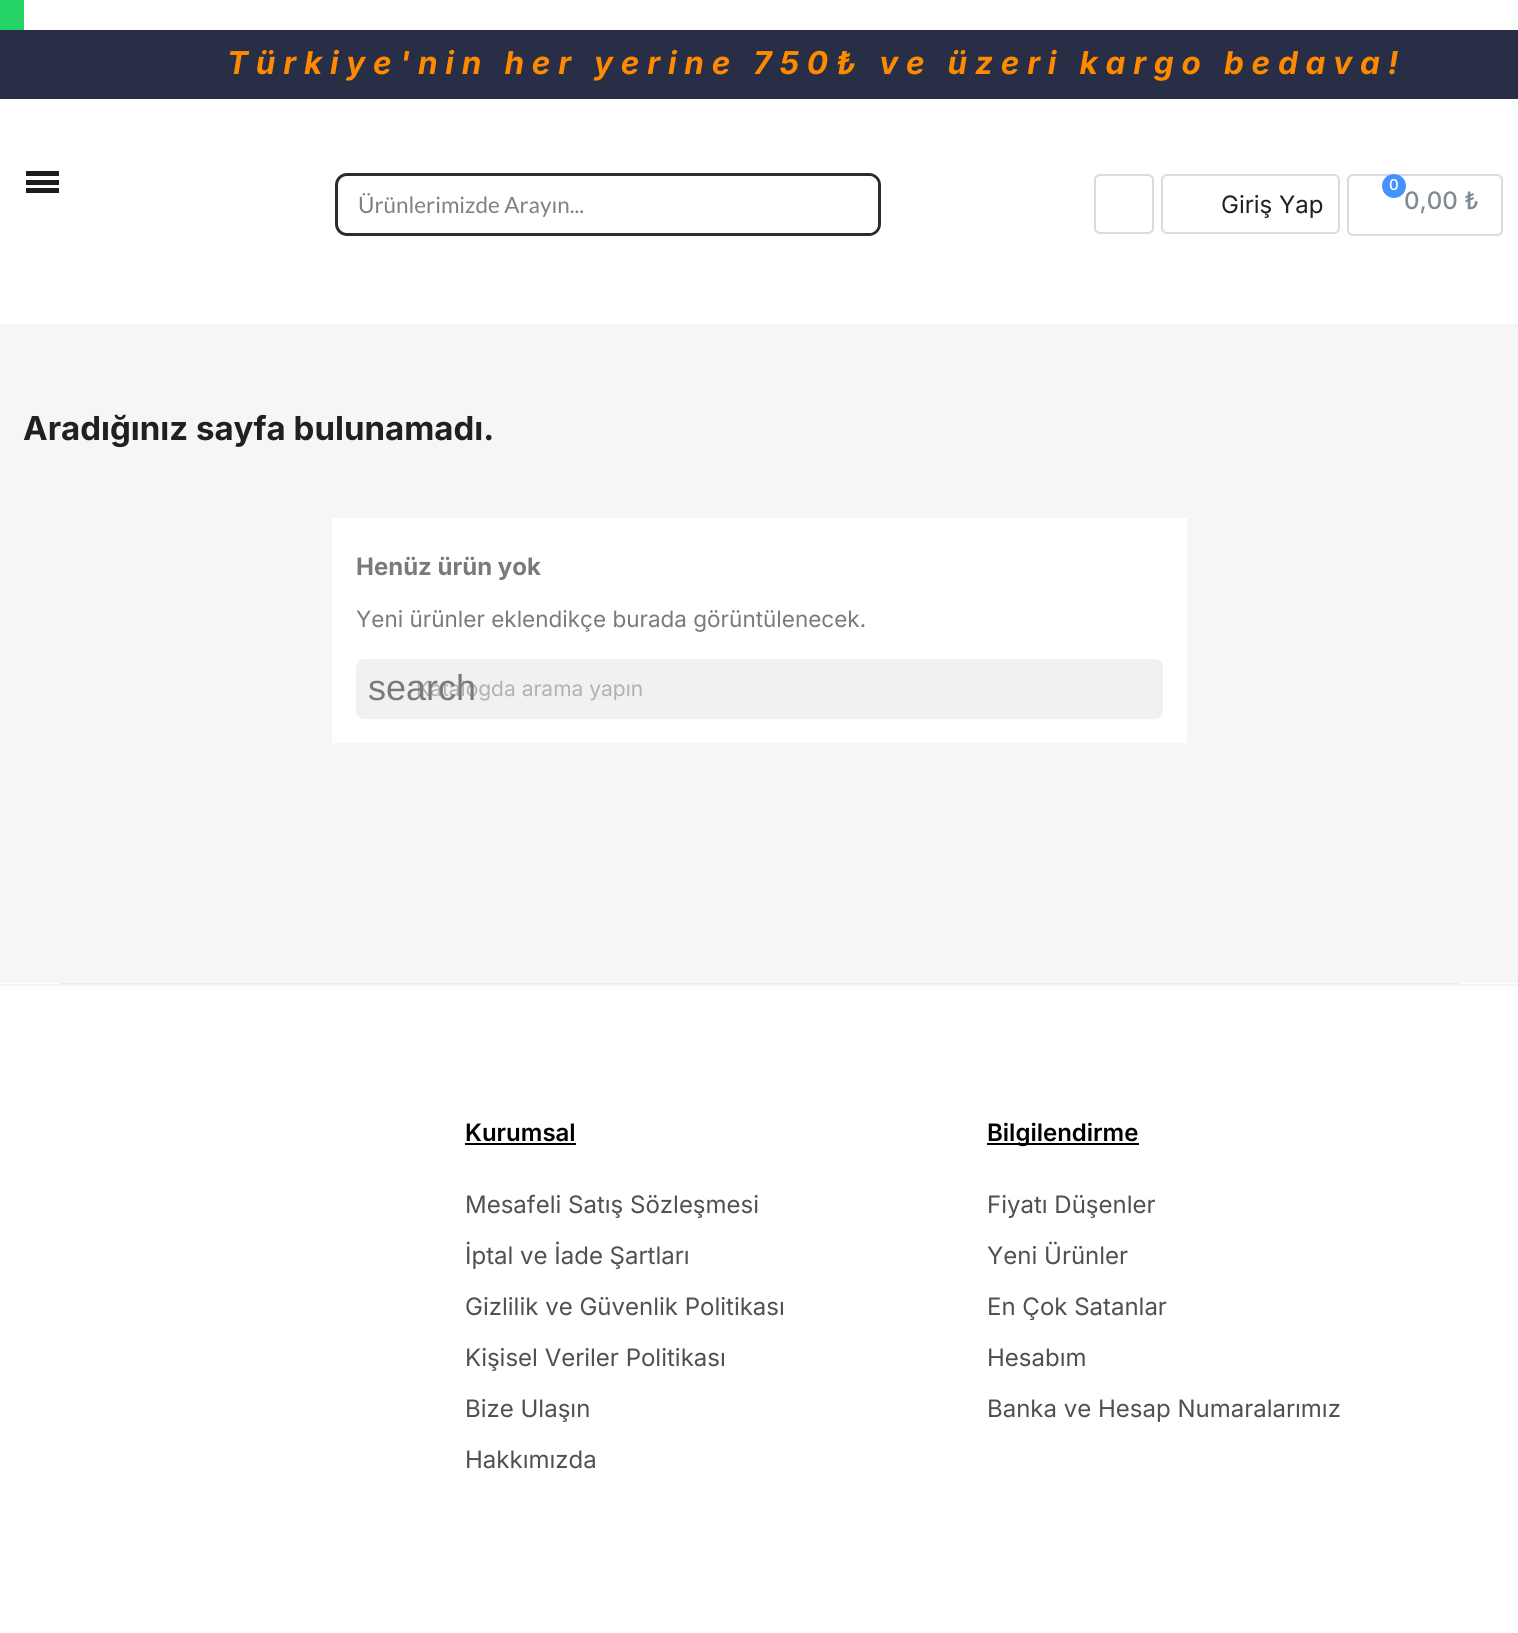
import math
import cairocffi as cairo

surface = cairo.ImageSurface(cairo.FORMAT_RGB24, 1518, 1633)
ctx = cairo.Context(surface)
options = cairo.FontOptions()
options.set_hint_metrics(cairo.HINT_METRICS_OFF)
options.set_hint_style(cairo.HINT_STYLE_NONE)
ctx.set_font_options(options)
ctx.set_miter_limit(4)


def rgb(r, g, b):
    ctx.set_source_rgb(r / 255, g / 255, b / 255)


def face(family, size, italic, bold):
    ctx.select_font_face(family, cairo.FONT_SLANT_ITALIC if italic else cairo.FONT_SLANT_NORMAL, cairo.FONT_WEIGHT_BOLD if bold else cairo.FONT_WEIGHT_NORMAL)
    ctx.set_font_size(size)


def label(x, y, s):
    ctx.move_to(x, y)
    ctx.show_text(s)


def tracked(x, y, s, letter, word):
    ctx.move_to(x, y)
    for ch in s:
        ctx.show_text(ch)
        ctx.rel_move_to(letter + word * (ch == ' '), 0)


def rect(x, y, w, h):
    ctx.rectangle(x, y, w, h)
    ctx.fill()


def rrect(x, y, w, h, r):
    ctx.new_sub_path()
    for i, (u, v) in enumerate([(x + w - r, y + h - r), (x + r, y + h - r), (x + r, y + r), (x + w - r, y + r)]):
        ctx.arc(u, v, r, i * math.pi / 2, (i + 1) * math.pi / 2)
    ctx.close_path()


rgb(255, 255, 255)
ctx.paint()
rgb(37, 211, 102)
rect(0, 0, 24, 30)
rgb(40, 46, 70)
rect(0, 30, 1518, 69)
face('Inter', 31.5, 1, 1)
rgb(255, 138, 0)
tracked(227, 74, 'Türkiye\'nin her yerine 750₺ ve üzeri kargo bedava!', 7.8, 0)
rgb(29, 29, 31)
rect(26, 180, 33, 5)
rect(26, 171, 33, 5)
rect(26, 188, 33, 5)
rrect(336.5, 174.5, 543, 60, 10.5)
rgb(44, 44, 44)
ctx.set_line_width(3)
ctx.stroke()
face('Lato', 22.5, 0, 0)
rgb(128, 128, 128)
label(358, 213, 'Ürünlerimizde Arayın...')
rgb(255, 255, 255)
ctx.new_path()
ctx.move_to(815, 176)
ctx.line_to(869, 176)
ctx.curve_to(874, 176, 878, 180, 878, 185)
ctx.line_to(878, 224)
ctx.curve_to(878, 229, 874, 233, 869, 233)
ctx.line_to(815, 233)
ctx.close_path()
ctx.fill()
rrect(1095, 175, 58, 58, 5)
rgb(218, 219, 220)
ctx.set_line_width(2)
ctx.stroke()
rrect(1162, 175, 177, 58, 5)
ctx.stroke()
face('Inter', 24, 0, 0)
rgb(32, 32, 32)
label(1221, 213, 'Giriş Yap')
rrect(1348, 175, 154, 60, 5)
rgb(218, 219, 220)
ctx.stroke()
face('Inter Medium', 24, 0, 0)
rgb(129, 138, 145)
label(1404, 209, '0,00 ₺')
rgb(69, 146, 255)
ctx.new_path()
ctx.arc(1394, 186, 12, 0, 2 * math.pi)
ctx.fill()
face('Inter Medium', 15, 0, 0)
rgb(255, 255, 255)
label(1389, 190, '0')
rgb(246, 246, 246)
rect(0, 324, 1518, 659)
face('Inter', 33, 0, 1)
rgb(32, 32, 32)
label(23, 440, 'Aradığınız sayfa bulunamadı.')
rgb(255, 255, 255)
rect(332, 518, 855, 225)
face('Inter', 24, 0, 1)
rgb(122, 122, 122)
label(356, 575, 'Henüz ürün yok')
face('Inter', 22.5, 0, 0)
label(356, 627, 'Yeni ürünler eklendikçe burada görüntülenecek.')
rgb(241, 241, 241)
rrect(356, 659, 807, 60, 8)
ctx.fill()
face('Inter', 21, 0, 0)
rgb(177, 177, 177)
label(416, 696, 'Katalogda arama yapın')
face('Liberation Sans', 36, 0, 0)
rgb(122, 122, 122)
label(368, 700, 'search')
rgb(235, 235, 235)
rect(60, 983, 1398, 1)
rgb(244, 244, 244)
rect(0, 984, 1518, 2)
face('Inter SemiBold', 24, 0, 0)
rgb(0, 0, 0)
label(465, 1141, 'Kurumsal')
rect(465, 1143, 111, 2)
face('Inter', 24, 0, 0)
rgb(80, 80, 80)
label(465, 1213, 'Mesafeli Satış Sözleşmesi')
label(465, 1264, 'İptal ve İade Şartları')
label(465, 1315, 'Gizlilik ve Güvenlik Politikası')
label(465, 1366, 'Kişisel Veriler Politikası')
label(465, 1417, 'Bize Ulaşın')
label(465, 1468, 'Hakkımızda')
rgb(0, 0, 0)
rect(987, 1143, 152, 2)
face('Inter SemiBold', 24, 0, 0)
label(987, 1141, 'Bilgilendirme')
face('Inter', 24, 0, 0)
rgb(80, 80, 80)
label(987, 1213, 'Fiyatı Düşenler')
label(987, 1264, 'Yeni Ürünler')
label(987, 1315, 'En Çok Satanlar')
label(987, 1366, 'Hesabım')
label(987, 1417, 'Banka ve Hesap Numaralarımız')
surface.write_to_png('render.png')
